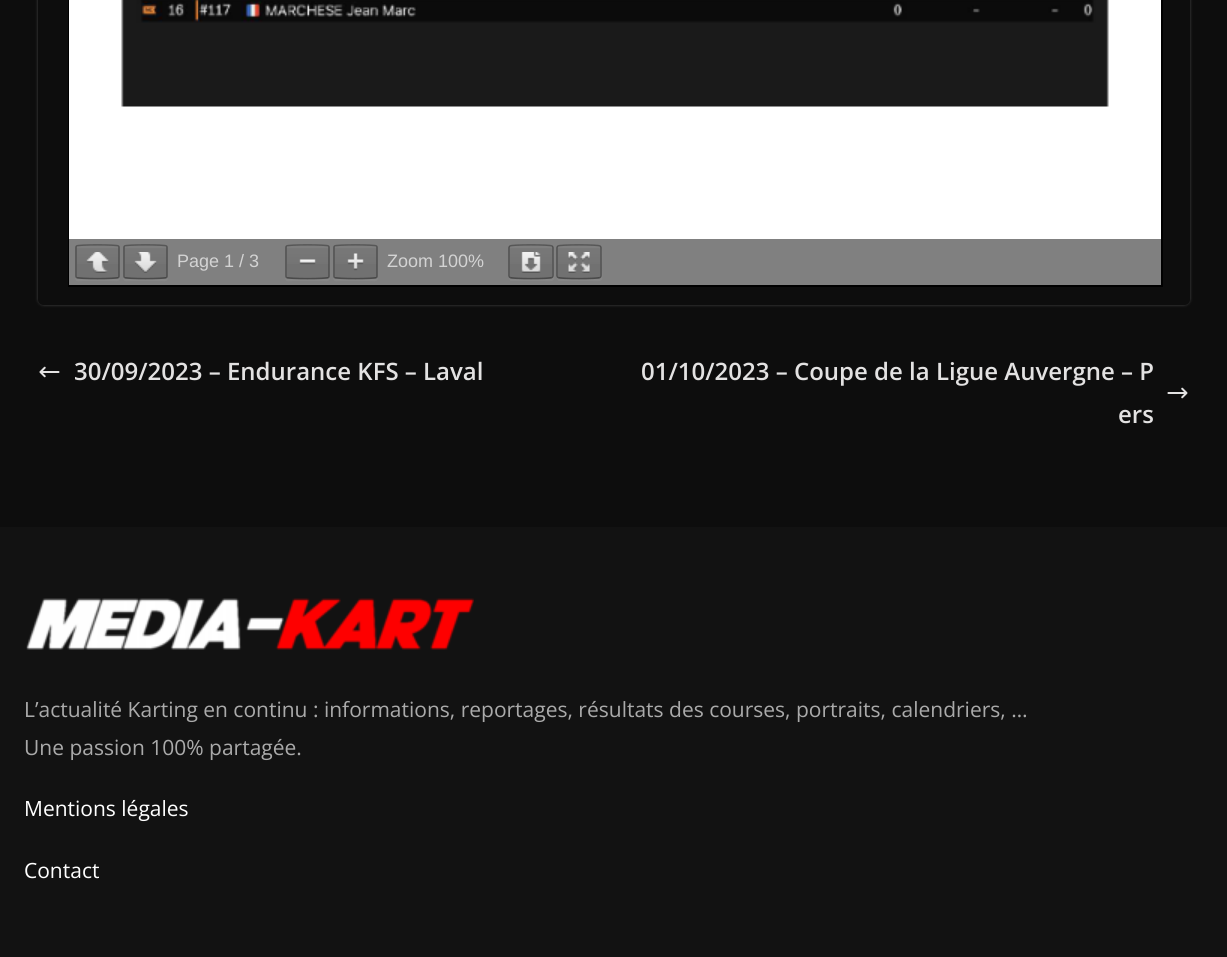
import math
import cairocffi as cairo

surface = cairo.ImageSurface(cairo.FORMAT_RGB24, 1227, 957)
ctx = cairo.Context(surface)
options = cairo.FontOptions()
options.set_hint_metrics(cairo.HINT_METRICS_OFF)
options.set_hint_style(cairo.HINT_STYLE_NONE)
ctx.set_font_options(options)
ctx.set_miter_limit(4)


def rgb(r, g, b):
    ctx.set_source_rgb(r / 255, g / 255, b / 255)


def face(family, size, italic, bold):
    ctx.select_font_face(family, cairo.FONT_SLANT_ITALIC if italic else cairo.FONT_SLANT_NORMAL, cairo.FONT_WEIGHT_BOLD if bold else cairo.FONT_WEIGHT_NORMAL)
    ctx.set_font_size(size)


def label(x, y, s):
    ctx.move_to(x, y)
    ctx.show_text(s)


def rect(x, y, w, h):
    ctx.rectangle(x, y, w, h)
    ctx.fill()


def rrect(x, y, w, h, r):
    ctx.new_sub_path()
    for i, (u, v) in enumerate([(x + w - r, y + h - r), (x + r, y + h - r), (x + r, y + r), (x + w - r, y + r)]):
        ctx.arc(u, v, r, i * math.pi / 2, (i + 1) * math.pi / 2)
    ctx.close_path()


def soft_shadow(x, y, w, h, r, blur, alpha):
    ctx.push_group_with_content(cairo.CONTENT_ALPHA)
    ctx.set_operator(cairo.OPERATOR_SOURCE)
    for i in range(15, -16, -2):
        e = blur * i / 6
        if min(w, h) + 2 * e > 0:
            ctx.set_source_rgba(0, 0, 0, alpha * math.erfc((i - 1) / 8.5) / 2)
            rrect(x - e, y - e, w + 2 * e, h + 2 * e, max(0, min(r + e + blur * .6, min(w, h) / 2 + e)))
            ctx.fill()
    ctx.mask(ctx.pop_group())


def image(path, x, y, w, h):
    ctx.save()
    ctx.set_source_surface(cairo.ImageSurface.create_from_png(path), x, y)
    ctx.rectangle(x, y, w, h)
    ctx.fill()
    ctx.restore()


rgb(13, 13, 13)
ctx.paint()
ctx.save()
ctx.set_fill_rule(cairo.FILL_RULE_EVEN_ODD)
ctx.new_path()
ctx.move_to(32, 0)
ctx.line_to(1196, 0)
ctx.line_to(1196, 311)
ctx.line_to(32, 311)
ctx.close_path()
ctx.move_to(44, -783)
ctx.line_to(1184, -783)
ctx.curve_to(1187.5, -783, 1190, -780.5, 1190, -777)
ctx.line_to(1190, 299)
ctx.curve_to(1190, 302.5, 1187.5, 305, 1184, 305)
ctx.line_to(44, 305)
ctx.curve_to(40.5, 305, 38, 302.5, 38, 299)
ctx.line_to(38, -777)
ctx.curve_to(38, -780.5, 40.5, -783, 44, -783)
ctx.close_path()
ctx.clip()
rgb(255, 255, 255)
soft_shadow(38, -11, 1152, 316, 6, 1.5, 0.24)
ctx.restore()
ctx.rectangle(69, -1, 1093, 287)
rgb(0, 0, 0)
ctx.stroke()
rgb(255, 255, 255)
rect(69, 0, 1092, 239)
image('image0.png', 121, 0, 988, 107)
rgb(128, 128, 128)
rect(69, 239, 1092, 46)
rgb(134, 134, 134)
ctx.new_path()
ctx.move_to(75, 276)
ctx.curve_to(75, 283, 78, 281, 84, 281)
ctx.line_to(110, 281)
ctx.curve_to(117, 281, 120, 283, 120, 276)
ctx.curve_to(120, 278, 119, 279, 117, 279)
ctx.line_to(78, 279)
ctx.curve_to(76, 279, 75, 278, 75, 276)
ctx.close_path()
ctx.fill()
rgb(113, 113, 113)
rrect(77, 246, 42, 32, 1.5)
ctx.fill()
gradient = cairo.LinearGradient(98, 246, 98, 278)
gradient.add_color_stop_rgba(0, 1, 1, 1, 0.05)
gradient.add_color_stop_rgba(1, 1, 1, 1, 0)
ctx.set_source(gradient)
rect(77, 246, 42, 18)
ctx.set_source_rgba(1, 1, 1, 0.05)
ctx.new_path()
ctx.move_to(78, 248)
ctx.line_to(117, 248)
ctx.curve_to(118, 248, 118, 248, 118, 249)
ctx.line_to(118, 278)
ctx.curve_to(119, 278, 119, 277, 119, 276)
ctx.line_to(119, 248)
ctx.curve_to(119, 247, 118, 246, 118, 246)
ctx.line_to(78, 246)
ctx.curve_to(78, 246, 77, 247, 77, 248)
ctx.close_path()
ctx.fill()
ctx.new_path()
ctx.move_to(76.5, 246)
ctx.curve_to(77.5, 244.5, 117.5, 244.5, 118.5, 246)
rgb(87, 87, 87)
ctx.set_line_width(1.5)
ctx.stroke()
ctx.new_path()
ctx.move_to(118.5, 246)
ctx.curve_to(119, 246.5, 119, 247, 119, 247.5)
ctx.line_to(119, 276)
ctx.curve_to(119, 276.5, 119, 277, 118.5, 277.5)
ctx.set_source_rgba(0, 0, 0, 0.38)
ctx.stroke()
ctx.new_path()
ctx.move_to(118.5, 277.5)
ctx.curve_to(117.5, 279, 77.5, 279, 76.5, 277.5)
ctx.set_source_rgba(0, 0, 0, 0.42)
ctx.stroke()
ctx.new_path()
ctx.move_to(76.5, 277.5)
ctx.curve_to(76, 277, 76, 276.5, 76, 276)
ctx.line_to(76, 247.5)
ctx.curve_to(76, 247, 76, 246.5, 76.5, 246)
ctx.set_source_rgba(0, 0, 0, 0.38)
ctx.stroke()
image('image1.png', 86, 252, 23, 21)
rgb(134, 134, 134)
ctx.new_path()
ctx.move_to(123, 276)
ctx.curve_to(123, 283, 126, 281, 132, 281)
ctx.line_to(158, 281)
ctx.curve_to(165, 281, 168, 283, 168, 276)
ctx.curve_to(168, 278, 167, 279, 165, 279)
ctx.line_to(126, 279)
ctx.curve_to(124, 279, 123, 278, 123, 276)
ctx.close_path()
ctx.fill()
rgb(113, 113, 113)
rrect(125, 246, 42, 32, 1.5)
ctx.fill()
gradient = cairo.LinearGradient(146, 246, 146, 278)
gradient.add_color_stop_rgba(0, 1, 1, 1, 0.05)
gradient.add_color_stop_rgba(1, 1, 1, 1, 0)
ctx.set_source(gradient)
rect(125, 246, 42, 18)
ctx.set_source_rgba(1, 1, 1, 0.05)
ctx.new_path()
ctx.move_to(126, 248)
ctx.line_to(165, 248)
ctx.curve_to(166, 248, 166, 248, 166, 249)
ctx.line_to(166, 278)
ctx.curve_to(167, 278, 167, 277, 167, 276)
ctx.line_to(167, 248)
ctx.curve_to(167, 247, 166, 246, 166, 246)
ctx.line_to(126, 246)
ctx.curve_to(126, 246, 125, 247, 125, 248)
ctx.close_path()
ctx.fill()
ctx.new_path()
ctx.move_to(124.5, 246)
ctx.curve_to(125.5, 244.5, 165.5, 244.5, 166.5, 246)
rgb(87, 87, 87)
ctx.stroke()
ctx.new_path()
ctx.move_to(166.5, 246)
ctx.curve_to(167, 246.5, 167, 247, 167, 247.5)
ctx.line_to(167, 276)
ctx.curve_to(167, 276.5, 167, 277, 166.5, 277.5)
ctx.set_source_rgba(0, 0, 0, 0.38)
ctx.stroke()
ctx.new_path()
ctx.move_to(166.5, 277.5)
ctx.curve_to(165.5, 279, 125.5, 279, 124.5, 277.5)
ctx.set_source_rgba(0, 0, 0, 0.42)
ctx.stroke()
ctx.new_path()
ctx.move_to(124.5, 277.5)
ctx.curve_to(124, 277, 124, 276.5, 124, 276)
ctx.line_to(124, 247.5)
ctx.curve_to(124, 247, 124, 246.5, 124.5, 246)
ctx.set_source_rgba(0, 0, 0, 0.38)
ctx.stroke()
image('image2.png', 134, 252, 23, 21)
face('Liberation Sans', 18, 0, 0)
rgb(211, 211, 211)
label(177, 267, 'Page 1 / 3')
rgb(134, 134, 134)
ctx.new_path()
ctx.move_to(285, 276)
ctx.curve_to(285, 283, 288, 281, 294, 281)
ctx.line_to(320, 281)
ctx.curve_to(327, 281, 330, 283, 330, 276)
ctx.curve_to(330, 278, 329, 279, 327, 279)
ctx.line_to(288, 279)
ctx.curve_to(286, 279, 285, 278, 285, 276)
ctx.close_path()
ctx.fill()
rgb(113, 113, 113)
rrect(287, 246, 42, 32, 1.5)
ctx.fill()
gradient = cairo.LinearGradient(308, 246, 308, 278)
gradient.add_color_stop_rgba(0, 1, 1, 1, 0.05)
gradient.add_color_stop_rgba(1, 1, 1, 1, 0)
ctx.set_source(gradient)
rect(287, 246, 42, 18)
ctx.set_source_rgba(1, 1, 1, 0.05)
ctx.new_path()
ctx.move_to(288, 248)
ctx.line_to(327, 248)
ctx.curve_to(328, 248, 328, 248, 328, 249)
ctx.line_to(328, 278)
ctx.curve_to(329, 278, 329, 277, 329, 276)
ctx.line_to(329, 248)
ctx.curve_to(329, 247, 328, 246, 328, 246)
ctx.line_to(288, 246)
ctx.curve_to(288, 246, 287, 247, 287, 248)
ctx.close_path()
ctx.fill()
ctx.new_path()
ctx.move_to(286.5, 246)
ctx.curve_to(287.5, 244.5, 327.5, 244.5, 328.5, 246)
rgb(87, 87, 87)
ctx.stroke()
ctx.new_path()
ctx.move_to(328.5, 246)
ctx.curve_to(329, 246.5, 329, 247, 329, 247.5)
ctx.line_to(329, 276)
ctx.curve_to(329, 276.5, 329, 277, 328.5, 277.5)
ctx.set_source_rgba(0, 0, 0, 0.38)
ctx.stroke()
ctx.new_path()
ctx.move_to(328.5, 277.5)
ctx.curve_to(327.5, 279, 287.5, 279, 286.5, 277.5)
ctx.set_source_rgba(0, 0, 0, 0.42)
ctx.stroke()
ctx.new_path()
ctx.move_to(286.5, 277.5)
ctx.curve_to(286, 277, 286, 276.5, 286, 276)
ctx.line_to(286, 247.5)
ctx.curve_to(286, 247, 286, 246.5, 286.5, 246)
ctx.set_source_rgba(0, 0, 0, 0.38)
ctx.stroke()
image('image3.png', 299, 259, 17, 6)
rgb(134, 134, 134)
ctx.new_path()
ctx.move_to(333, 276)
ctx.curve_to(333, 283, 336, 281, 342, 281)
ctx.line_to(368, 281)
ctx.curve_to(375, 281, 378, 283, 378, 276)
ctx.curve_to(378, 278, 377, 279, 375, 279)
ctx.line_to(336, 279)
ctx.curve_to(334, 279, 333, 278, 333, 276)
ctx.close_path()
ctx.fill()
rgb(113, 113, 113)
rrect(335, 246, 42, 32, 1.5)
ctx.fill()
gradient = cairo.LinearGradient(356, 246, 356, 278)
gradient.add_color_stop_rgba(0, 1, 1, 1, 0.05)
gradient.add_color_stop_rgba(1, 1, 1, 1, 0)
ctx.set_source(gradient)
rect(335, 246, 42, 18)
ctx.set_source_rgba(1, 1, 1, 0.05)
ctx.new_path()
ctx.move_to(336, 248)
ctx.line_to(375, 248)
ctx.curve_to(376, 248, 376, 248, 376, 249)
ctx.line_to(376, 278)
ctx.curve_to(377, 278, 377, 277, 377, 276)
ctx.line_to(377, 248)
ctx.curve_to(377, 247, 376, 246, 376, 246)
ctx.line_to(336, 246)
ctx.curve_to(336, 246, 335, 247, 335, 248)
ctx.close_path()
ctx.fill()
ctx.new_path()
ctx.move_to(334.5, 246)
ctx.curve_to(335.5, 244.5, 375.5, 244.5, 376.5, 246)
rgb(87, 87, 87)
ctx.stroke()
ctx.new_path()
ctx.move_to(376.5, 246)
ctx.curve_to(377, 246.5, 377, 247, 377, 247.5)
ctx.line_to(377, 276)
ctx.curve_to(377, 276.5, 377, 277, 376.5, 277.5)
ctx.set_source_rgba(0, 0, 0, 0.38)
ctx.stroke()
ctx.new_path()
ctx.move_to(376.5, 277.5)
ctx.curve_to(375.5, 279, 335.5, 279, 334.5, 277.5)
ctx.set_source_rgba(0, 0, 0, 0.42)
ctx.stroke()
ctx.new_path()
ctx.move_to(334.5, 277.5)
ctx.curve_to(334, 277, 334, 276.5, 334, 276)
ctx.line_to(334, 247.5)
ctx.curve_to(334, 247, 334, 246.5, 334.5, 246)
ctx.set_source_rgba(0, 0, 0, 0.38)
ctx.stroke()
image('image4.png', 347, 253, 17, 18)
rgb(211, 211, 211)
label(387, 267, 'Zoom 100%')
rgb(134, 134, 134)
ctx.new_path()
ctx.move_to(509, 278)
ctx.curve_to(509, 279, 510, 281, 511, 281)
ctx.line_to(538, 281)
ctx.curve_to(558, 281, 554, 284, 554, 264)
ctx.curve_to(554, 261, 555, 250, 553, 247)
ctx.line_to(554, 271)
ctx.curve_to(554, 280, 553, 279, 544, 279)
ctx.line_to(518, 279)
ctx.curve_to(516, 279, 511, 280, 509, 278)
ctx.close_path()
ctx.fill()
rgb(113, 113, 113)
rrect(510, 246, 42, 32, 1.5)
ctx.fill()
gradient = cairo.LinearGradient(531, 246, 531, 278)
gradient.add_color_stop_rgba(0, 1, 1, 1, 0.05)
gradient.add_color_stop_rgba(1, 1, 1, 1, 0)
ctx.set_source(gradient)
rect(510, 246, 42, 18)
rgb(127, 127, 127)
ctx.new_path()
ctx.move_to(512, 248)
ctx.line_to(550, 248)
ctx.curve_to(551, 248, 552, 248, 552, 249)
ctx.curve_to(552, 244, 549, 246, 544, 246)
ctx.line_to(518, 246)
ctx.curve_to(513, 246, 510, 244, 510, 249)
ctx.curve_to(510, 248, 511, 248, 512, 248)
ctx.close_path()
ctx.fill()
ctx.new_path()
ctx.move_to(510, 246)
ctx.curve_to(511, 244.5, 551, 244.5, 552, 246)
rgb(87, 87, 87)
ctx.stroke()
ctx.new_path()
ctx.move_to(552, 246)
ctx.curve_to(552.5, 246.5, 553, 247, 553, 247.5)
ctx.line_to(553, 276)
ctx.curve_to(553, 276.5, 552.5, 277, 552, 277.5)
ctx.set_source_rgba(0, 0, 0, 0.38)
ctx.stroke()
ctx.new_path()
ctx.move_to(552, 277.5)
ctx.curve_to(551, 279, 511, 279, 510, 277.5)
ctx.set_source_rgba(0, 0, 0, 0.42)
ctx.stroke()
ctx.new_path()
ctx.move_to(510, 277.5)
ctx.curve_to(509.5, 277, 509, 276.5, 509, 276)
ctx.line_to(509, 247.5)
ctx.curve_to(509, 247, 509.5, 246.5, 510, 246)
ctx.set_source_rgba(0, 0, 0, 0.38)
ctx.stroke()
image('image5.png', 521, 252, 20, 21)
rgb(134, 134, 134)
ctx.new_path()
ctx.move_to(557, 278)
ctx.curve_to(557, 279, 558, 281, 559, 281)
ctx.line_to(586, 281)
ctx.curve_to(606, 281, 602, 284, 602, 264)
ctx.curve_to(602, 261, 603, 250, 601, 247)
ctx.line_to(602, 271)
ctx.curve_to(602, 280, 601, 279, 592, 279)
ctx.line_to(566, 279)
ctx.curve_to(564, 279, 559, 280, 557, 278)
ctx.close_path()
ctx.fill()
rgb(113, 113, 113)
rrect(558, 246, 42, 32, 1.5)
ctx.fill()
gradient = cairo.LinearGradient(579, 246, 579, 278)
gradient.add_color_stop_rgba(0, 1, 1, 1, 0.05)
gradient.add_color_stop_rgba(1, 1, 1, 1, 0)
ctx.set_source(gradient)
rect(558, 246, 42, 18)
rgb(127, 127, 127)
ctx.new_path()
ctx.move_to(560, 248)
ctx.line_to(598, 248)
ctx.curve_to(599, 248, 600, 248, 600, 249)
ctx.curve_to(600, 244, 597, 246, 592, 246)
ctx.line_to(566, 246)
ctx.curve_to(561, 246, 558, 244, 558, 249)
ctx.curve_to(558, 248, 559, 248, 560, 248)
ctx.close_path()
ctx.fill()
ctx.new_path()
ctx.move_to(558, 246)
ctx.curve_to(559, 244.5, 599, 244.5, 600, 246)
rgb(87, 87, 87)
ctx.stroke()
ctx.new_path()
ctx.move_to(600, 246)
ctx.curve_to(600.5, 246.5, 601, 247, 601, 247.5)
ctx.line_to(601, 276)
ctx.curve_to(601, 276.5, 600.5, 277, 600, 277.5)
ctx.set_source_rgba(0, 0, 0, 0.38)
ctx.stroke()
ctx.new_path()
ctx.move_to(600, 277.5)
ctx.curve_to(599, 279, 559, 279, 558, 277.5)
ctx.set_source_rgba(0, 0, 0, 0.42)
ctx.stroke()
ctx.new_path()
ctx.move_to(558, 277.5)
ctx.curve_to(557.5, 277, 557, 276.5, 557, 276)
ctx.line_to(557, 247.5)
ctx.curve_to(557, 247, 557.5, 246.5, 558, 246)
ctx.set_source_rgba(0, 0, 0, 0.38)
ctx.stroke()
image('image6.png', 568, 252, 22, 21)
image('image7.png', 39, 366, 21, 12)
face('Open Sans SemiBold', 24, 0, 0)
rgb(227, 226, 226)
label(74, 380, '30/09/2023 – Endurance KFS – Laval')
label(641, 380, '01/10/2023 – Coupe de la Ligue Auvergne – P')
image('image8.png', 1167, 387, 21, 12)
label(1118, 423, 'ers')
rgb(18, 18, 18)
rect(0, 527, 1227, 430)
image('image9.png', 26, 598, 448, 52)
face('Open Sans', 21, 0, 0)
rgb(170, 170, 170)
label(24, 717, 'L’actualité Karting en continu : informations, reportages, résultats des courses, portraits, calendriers, …')
label(24, 755, 'Une passion 100% partagée.')
rgb(255, 255, 255)
label(24, 816, 'Mentions légales')
label(24, 878, 'Contact')
surface.write_to_png('render.png')
